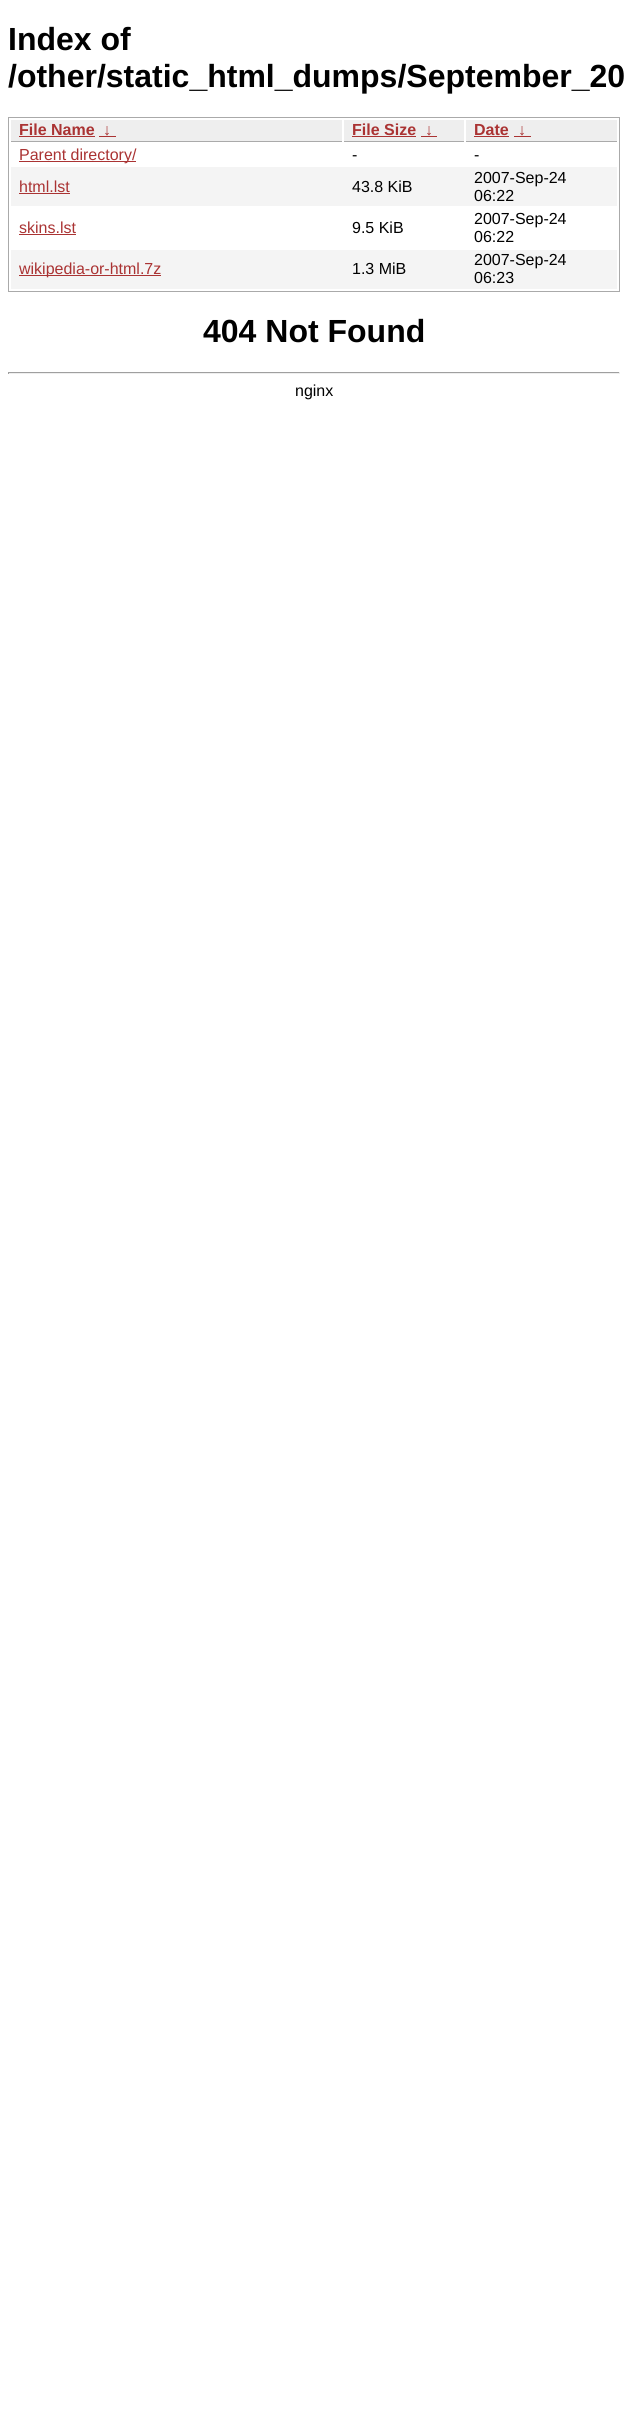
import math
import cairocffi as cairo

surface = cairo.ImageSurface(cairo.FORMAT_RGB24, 628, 2409)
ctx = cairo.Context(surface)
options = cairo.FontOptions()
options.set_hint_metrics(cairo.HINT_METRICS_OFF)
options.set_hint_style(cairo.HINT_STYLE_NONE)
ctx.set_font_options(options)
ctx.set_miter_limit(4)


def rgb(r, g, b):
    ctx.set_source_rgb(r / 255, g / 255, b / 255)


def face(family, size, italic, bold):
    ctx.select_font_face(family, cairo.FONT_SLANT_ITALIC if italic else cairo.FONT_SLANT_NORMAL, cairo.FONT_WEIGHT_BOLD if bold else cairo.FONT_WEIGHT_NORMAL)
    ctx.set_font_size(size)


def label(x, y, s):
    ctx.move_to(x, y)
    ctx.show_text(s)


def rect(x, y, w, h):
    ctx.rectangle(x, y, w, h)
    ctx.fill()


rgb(255, 255, 255)
ctx.paint()
face('Liberation Sans', 32, 0, 1)
rgb(0, 0, 0)
label(8, 50, 'Index of')
label(8, 87, '/other/static_html_dumps/September_20')
ctx.rectangle(8.5, 117.5, 611, 174)
rgb(170, 170, 170)
ctx.set_line_width(1)
ctx.stroke()
rgb(238, 238, 238)
rect(11, 120, 331, 21)
rgb(170, 170, 170)
rect(11, 141, 331, 1)
face('Liberation Sans', 16, 0, 1)
rgb(170, 51, 51)
label(19, 135, 'File Name')
rect(19, 136, 76, 1)
label(103, 135, '↓')
rect(99, 136, 17, 1)
rgb(238, 238, 238)
rect(344, 120, 120, 21)
rgb(170, 170, 170)
rect(344, 141, 120, 1)
rgb(170, 51, 51)
label(352, 135, 'File Size')
rect(352, 136, 64, 1)
label(425, 135, '↓')
rect(421, 136, 16, 1)
rgb(238, 238, 238)
rect(466, 120, 151, 21)
rgb(170, 170, 170)
rect(466, 141, 151, 1)
rgb(170, 51, 51)
label(474, 135, 'Date')
rect(474, 136, 35, 1)
label(518, 135, '↓')
rect(514, 136, 17, 1)
rect(19, 161, 117, 1)
face('Liberation Sans', 16, 0, 0)
label(19, 160, 'Parent directory/')
rgb(0, 0, 0)
label(352, 160, '-')
label(474, 160, '-')
rgb(244, 244, 244)
rect(11, 167, 606, 39)
rgb(170, 51, 51)
label(19, 192, 'html.lst')
rect(19, 193, 51, 1)
rgb(0, 0, 0)
label(352, 192, '43.8 KiB')
label(474, 183, '2007-Sep-24')
label(474, 201, '06:22')
rgb(170, 51, 51)
label(19, 233, 'skins.lst')
rect(19, 234, 57, 1)
rgb(0, 0, 0)
label(352, 233, '9.5 KiB')
label(474, 224, '2007-Sep-24')
label(474, 242, '06:22')
rgb(244, 244, 244)
rect(11, 250, 606, 39)
rgb(170, 51, 51)
rect(19, 275, 142, 1)
label(19, 274, 'wikipedia-or-html.7z')
rgb(0, 0, 0)
label(352, 274, '1.3 MiB')
label(474, 265, '2007-Sep-24')
label(474, 283, '06:23')
face('Liberation Sans', 32, 0, 1)
label(203, 342, '404 Not Found')
rgb(159, 159, 159)
rect(8, 372, 612, 1)
rgb(238, 238, 238)
rect(619, 372, 1, 2)
rect(8, 373, 612, 1)
rgb(159, 159, 159)
rect(8, 372, 1, 2)
face('Liberation Sans', 16, 0, 0)
rgb(0, 0, 0)
label(295, 396, 'nginx')
surface.write_to_png('render.png')
